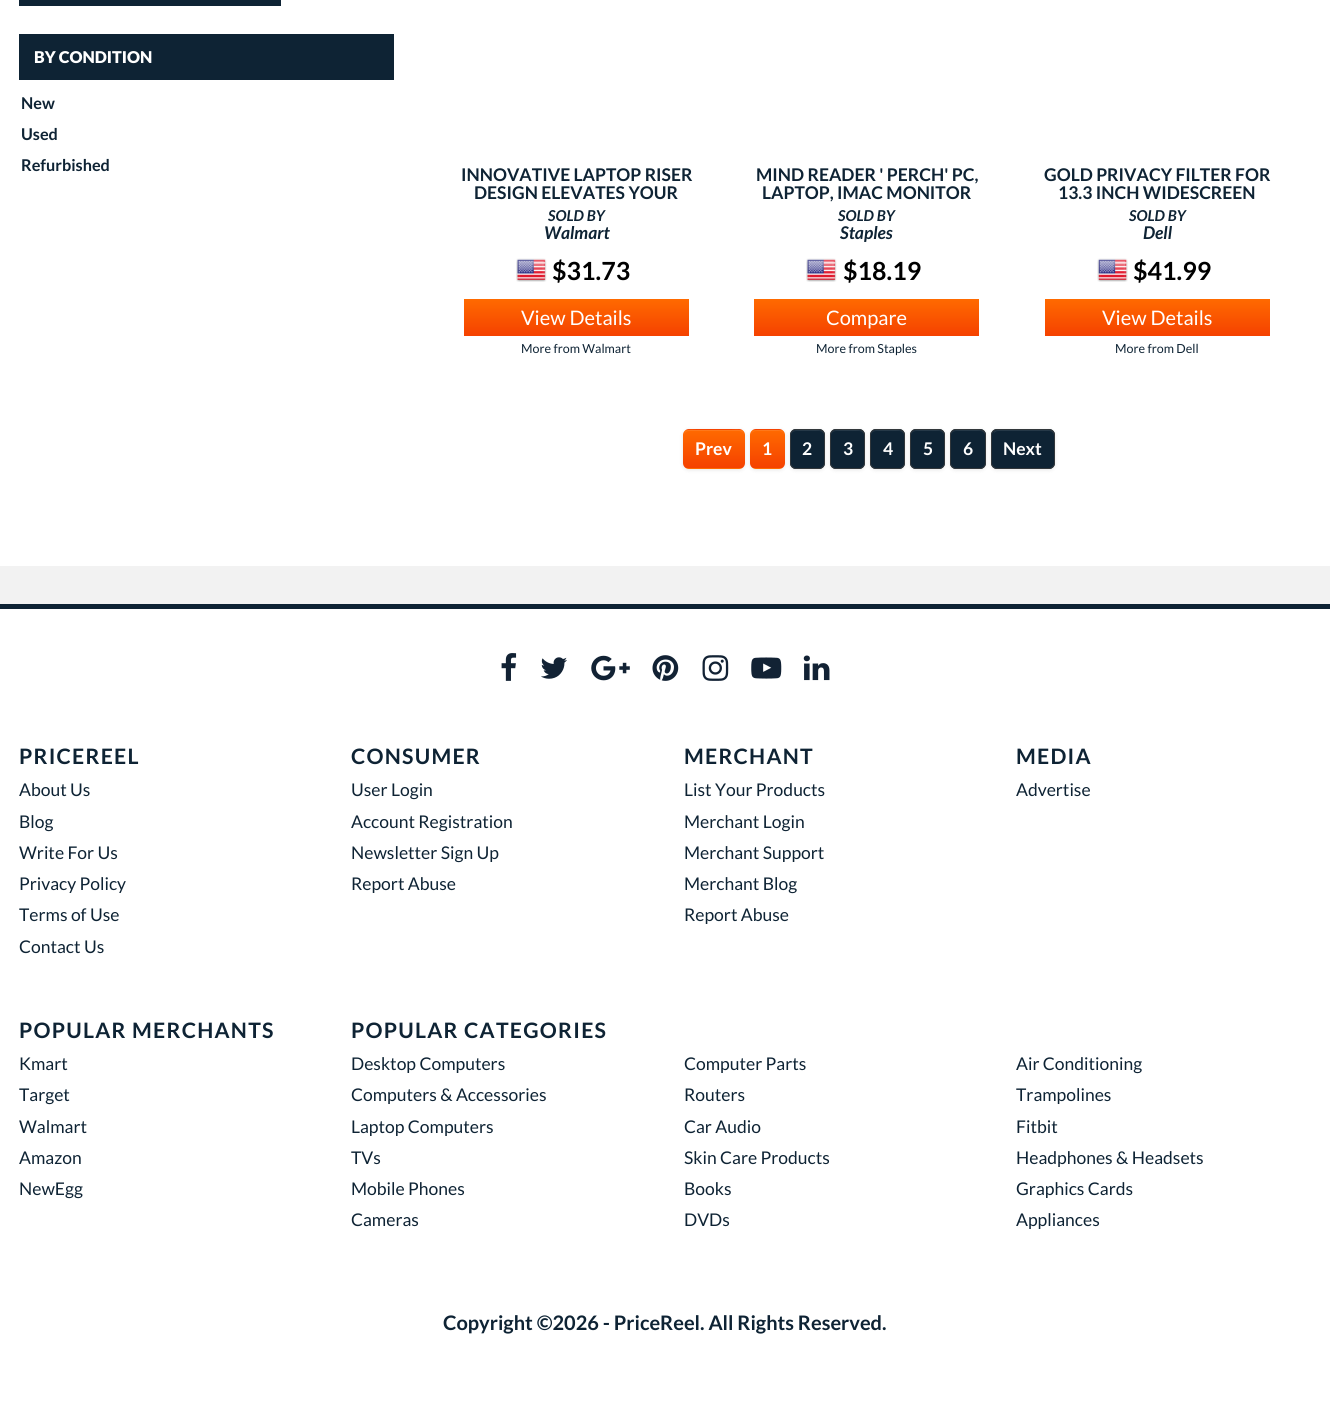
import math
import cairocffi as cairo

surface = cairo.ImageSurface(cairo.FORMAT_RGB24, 1330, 1415)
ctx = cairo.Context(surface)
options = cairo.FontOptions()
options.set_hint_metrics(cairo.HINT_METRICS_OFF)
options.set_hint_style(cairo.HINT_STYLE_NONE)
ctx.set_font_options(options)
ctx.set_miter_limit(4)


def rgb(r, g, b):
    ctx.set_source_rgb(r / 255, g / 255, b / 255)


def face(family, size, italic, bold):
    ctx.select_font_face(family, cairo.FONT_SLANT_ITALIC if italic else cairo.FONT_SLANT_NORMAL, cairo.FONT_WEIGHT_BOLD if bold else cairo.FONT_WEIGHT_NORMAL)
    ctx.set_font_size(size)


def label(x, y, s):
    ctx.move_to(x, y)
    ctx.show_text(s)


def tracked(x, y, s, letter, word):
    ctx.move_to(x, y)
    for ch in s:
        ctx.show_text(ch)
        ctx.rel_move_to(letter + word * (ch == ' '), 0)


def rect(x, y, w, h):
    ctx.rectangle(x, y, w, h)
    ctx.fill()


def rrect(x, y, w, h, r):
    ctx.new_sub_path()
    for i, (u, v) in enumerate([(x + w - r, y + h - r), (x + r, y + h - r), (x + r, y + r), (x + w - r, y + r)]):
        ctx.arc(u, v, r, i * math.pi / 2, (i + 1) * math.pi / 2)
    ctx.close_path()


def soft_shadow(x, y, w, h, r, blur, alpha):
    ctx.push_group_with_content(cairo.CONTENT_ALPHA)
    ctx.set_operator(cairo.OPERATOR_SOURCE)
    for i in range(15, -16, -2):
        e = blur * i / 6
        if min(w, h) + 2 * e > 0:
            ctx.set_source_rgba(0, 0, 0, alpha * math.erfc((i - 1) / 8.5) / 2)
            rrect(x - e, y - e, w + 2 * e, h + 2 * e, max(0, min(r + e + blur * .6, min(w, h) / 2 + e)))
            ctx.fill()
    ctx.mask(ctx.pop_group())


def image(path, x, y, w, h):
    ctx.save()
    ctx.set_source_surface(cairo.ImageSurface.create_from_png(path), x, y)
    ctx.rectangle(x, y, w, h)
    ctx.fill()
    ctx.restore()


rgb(242, 242, 242)
ctx.paint()
rgb(255, 255, 255)
rect(0, 0, 1330, 566)
rgb(14, 35, 52)
rect(19, 0, 262, 6)
rect(19, 34, 375, 46)
face('Lato Black', 16.25, 0, 0)
rgb(255, 255, 255)
label(34, 63, 'BY CONDITION')
face('Lato', 16.25, 0, 1)
rgb(14, 35, 52)
label(21, 109, 'New')
label(21, 140, 'Used')
label(21, 171, 'Refurbished')
face('Lato', 17.5, 0, 1)
label(461, 181, 'INNOVATIVE LAPTOP RISER')
label(474, 199, 'DESIGN ELEVATES YOUR')
face('Lato', 15, 1, 1)
label(548, 221, 'SOLD BY')
face('Lato', 17.5, 1, 1)
label(544, 239, 'Walmart')
image('image0.png', 516, 258, 31, 24)
face('Lato', 25, 0, 1)
rgb(0, 0, 0)
label(552, 280, '$31.73')
gradient = cairo.LinearGradient(576, 299, 576, 336)
gradient.add_color_stop_rgba(0, 1, 0.416, 0, 1)
gradient.add_color_stop_rgba(1, 0.961, 0.255, 0, 1)
ctx.set_source(gradient)
rect(464, 299, 225, 37)
face('Lato', 20, 0, 0)
rgb(255, 255, 255)
label(521, 325, 'View Details')
face('Lato', 12.5, 0, 0)
rgb(14, 35, 52)
label(521, 353, 'More from Walmart')
face('Lato', 17.5, 0, 1)
label(756, 181, 'MIND READER \' PERCH\' PC,')
label(762, 199, 'LAPTOP, IMAC MONITOR')
face('Lato', 15, 1, 1)
label(838, 221, 'SOLD BY')
face('Lato', 17.5, 1, 1)
label(840, 239, 'Staples')
image('image0.png', 806, 258, 31, 24)
face('Lato', 25, 0, 1)
rgb(0, 0, 0)
label(843, 280, '$18.19')
gradient = cairo.LinearGradient(866, 299, 866, 336)
gradient.add_color_stop_rgba(0, 1, 0.416, 0, 1)
gradient.add_color_stop_rgba(1, 0.961, 0.255, 0, 1)
ctx.set_source(gradient)
rect(754, 299, 225, 37)
face('Lato', 20, 0, 0)
rgb(255, 255, 255)
label(826, 325, 'Compare')
face('Lato', 12.5, 0, 0)
rgb(14, 35, 52)
label(816, 353, 'More from Staples')
face('Lato', 17.5, 0, 1)
label(1044, 181, 'GOLD PRIVACY FILTER FOR')
label(1058, 199, '13.3 INCH WIDESCREEN')
face('Lato', 15, 1, 1)
label(1129, 221, 'SOLD BY')
face('Lato', 17.5, 1, 1)
label(1143, 239, 'Dell')
image('image1.png', 1097, 258, 31, 24)
face('Lato', 25, 0, 1)
rgb(0, 0, 0)
label(1133, 280, '$41.99')
gradient = cairo.LinearGradient(1158, 299, 1158, 336)
gradient.add_color_stop_rgba(0, 1, 0.416, 0, 1)
gradient.add_color_stop_rgba(1, 0.961, 0.255, 0, 1)
ctx.set_source(gradient)
rect(1045, 299, 225, 37)
face('Lato', 20, 0, 0)
rgb(255, 255, 255)
label(1102, 325, 'View Details')
face('Lato', 12.5, 0, 0)
rgb(14, 35, 52)
label(1115, 353, 'More from Dell')
rgb(0, 0, 0)
soft_shadow(683, 430, 62, 40, 6, 2, 0.1)
ctx.save()
rrect(683, 429, 62, 40, 6)
ctx.clip()
gradient = cairo.LinearGradient(714, 393, 714, 430)
gradient.add_color_stop_rgba(0, 1, 0.416, 0, 1)
gradient.add_color_stop_rgba(1, 0.961, 0.255, 0, 1)
ctx.set_source(gradient)
rect(683, 429, 62, 1)
gradient = cairo.LinearGradient(714, 430, 714, 468)
gradient.add_color_stop_rgba(0, 1, 0.416, 0, 1)
gradient.add_color_stop_rgba(1, 0.961, 0.255, 0, 1)
ctx.set_source(gradient)
rect(683, 430, 62, 38)
gradient = cairo.LinearGradient(714, 468, 714, 505)
gradient.add_color_stop_rgba(0, 1, 0.416, 0, 1)
gradient.add_color_stop_rgba(1, 0.961, 0.255, 0, 1)
ctx.set_source(gradient)
rect(683, 468, 62, 1)
ctx.restore()
rgb(255, 120, 26)
ctx.new_path()
ctx.move_to(689, 431)
ctx.line_to(739, 431)
ctx.curve_to(742, 431, 744, 433, 744, 436)
ctx.curve_to(744, 428, 737, 430, 731, 430)
ctx.line_to(697, 430)
ctx.curve_to(691, 430, 684, 428, 684, 436)
ctx.curve_to(684, 433, 686, 431, 689, 431)
ctx.close_path()
ctx.fill()
face('Lato', 17.5, 0, 1)
rgb(255, 255, 255)
label(695, 455, 'Prev')
rgb(0, 0, 0)
soft_shadow(750, 430, 35, 40, 6, 2, 0.1)
ctx.save()
rrect(750, 429, 35, 40, 6)
ctx.clip()
gradient = cairo.LinearGradient(768, 393, 768, 430)
gradient.add_color_stop_rgba(0, 1, 0.416, 0, 1)
gradient.add_color_stop_rgba(1, 0.961, 0.255, 0, 1)
ctx.set_source(gradient)
rect(750, 429, 35, 1)
gradient = cairo.LinearGradient(768, 430, 768, 468)
gradient.add_color_stop_rgba(0, 1, 0.416, 0, 1)
gradient.add_color_stop_rgba(1, 0.961, 0.255, 0, 1)
ctx.set_source(gradient)
rect(750, 430, 35, 38)
gradient = cairo.LinearGradient(768, 468, 768, 505)
gradient.add_color_stop_rgba(0, 1, 0.416, 0, 1)
gradient.add_color_stop_rgba(1, 0.961, 0.255, 0, 1)
ctx.set_source(gradient)
rect(750, 468, 35, 1)
ctx.restore()
rgb(255, 120, 26)
ctx.new_path()
ctx.move_to(756, 431)
ctx.line_to(779, 431)
ctx.curve_to(782, 431, 784, 433, 784, 436)
ctx.curve_to(784, 430, 780, 430, 775, 430)
ctx.line_to(760, 430)
ctx.curve_to(755, 430, 751, 430, 751, 436)
ctx.curve_to(751, 433, 753, 431, 756, 431)
ctx.close_path()
ctx.fill()
rgb(255, 255, 255)
label(762, 455, '1')
rgb(0, 0, 0)
soft_shadow(790, 430, 35, 40, 6, 2, 0.1)
rgb(14, 35, 52)
rrect(790, 429, 35, 40, 6)
ctx.fill()
rgb(38, 57, 72)
ctx.new_path()
ctx.move_to(796, 431)
ctx.line_to(819, 431)
ctx.curve_to(822, 431, 824, 433, 824, 436)
ctx.curve_to(824, 430, 820, 430, 815, 430)
ctx.line_to(800, 430)
ctx.curve_to(795, 430, 791, 430, 791, 436)
ctx.curve_to(791, 433, 793, 431, 796, 431)
ctx.close_path()
ctx.fill()
rrect(790.5, 429.5, 34, 39, 5.5)
rgb(50, 55, 59)
ctx.set_line_width(1)
ctx.stroke()
rgb(255, 255, 255)
label(802, 455, '2')
rgb(0, 0, 0)
soft_shadow(830, 430, 35, 40, 6, 2, 0.1)
rgb(14, 35, 52)
rrect(830, 429, 35, 40, 6)
ctx.fill()
rgb(38, 57, 72)
ctx.new_path()
ctx.move_to(836, 431)
ctx.line_to(859, 431)
ctx.curve_to(862, 431, 864, 433, 864, 436)
ctx.curve_to(864, 430, 860, 430, 855, 430)
ctx.line_to(840, 430)
ctx.curve_to(835, 430, 831, 430, 831, 436)
ctx.curve_to(831, 433, 833, 431, 836, 431)
ctx.close_path()
ctx.fill()
rrect(830.5, 429.5, 34, 39, 5.5)
rgb(50, 55, 59)
ctx.stroke()
rgb(255, 255, 255)
label(843, 455, '3')
rgb(0, 0, 0)
soft_shadow(870, 430, 35, 40, 6, 2, 0.1)
rgb(14, 35, 52)
rrect(870, 429, 35, 40, 6)
ctx.fill()
rgb(38, 57, 72)
ctx.new_path()
ctx.move_to(876, 431)
ctx.line_to(899, 431)
ctx.curve_to(902, 431, 904, 433, 904, 436)
ctx.curve_to(904, 430, 900, 430, 895, 430)
ctx.line_to(880, 430)
ctx.curve_to(875, 430, 871, 430, 871, 436)
ctx.curve_to(871, 433, 873, 431, 876, 431)
ctx.close_path()
ctx.fill()
rrect(870.5, 429.5, 34, 39, 5.5)
rgb(50, 55, 59)
ctx.stroke()
rgb(255, 255, 255)
label(883, 455, '4')
rgb(0, 0, 0)
soft_shadow(910, 430, 35, 40, 6, 2, 0.1)
rgb(14, 35, 52)
rrect(910, 429, 35, 40, 6)
ctx.fill()
rgb(38, 57, 72)
ctx.new_path()
ctx.move_to(916, 431)
ctx.line_to(939, 431)
ctx.curve_to(942, 431, 944, 433, 944, 436)
ctx.curve_to(944, 430, 940, 430, 935, 430)
ctx.line_to(920, 430)
ctx.curve_to(915, 430, 911, 430, 911, 436)
ctx.curve_to(911, 433, 913, 431, 916, 431)
ctx.close_path()
ctx.fill()
rrect(910.5, 429.5, 34, 39, 5.5)
rgb(50, 55, 59)
ctx.stroke()
rgb(255, 255, 255)
label(923, 455, '5')
rgb(0, 0, 0)
soft_shadow(950, 430, 36, 40, 6, 2, 0.1)
rgb(14, 35, 52)
rrect(950, 429, 36, 40, 6)
ctx.fill()
rgb(38, 57, 72)
ctx.new_path()
ctx.move_to(956, 431)
ctx.line_to(980, 431)
ctx.curve_to(983, 431, 985, 433, 985, 436)
ctx.curve_to(985, 430, 981, 430, 976, 430)
ctx.line_to(960, 430)
ctx.curve_to(955, 430, 951, 430, 951, 436)
ctx.curve_to(951, 433, 953, 431, 956, 431)
ctx.close_path()
ctx.fill()
rrect(950.5, 429.5, 35, 39, 5.5)
rgb(50, 55, 59)
ctx.stroke()
rgb(255, 255, 255)
label(963, 455, '6')
rgb(0, 0, 0)
soft_shadow(991, 430, 64, 40, 6, 2, 0.1)
rgb(14, 35, 52)
rrect(991, 429, 64, 40, 6)
ctx.fill()
rgb(38, 57, 72)
ctx.new_path()
ctx.move_to(998, 431)
ctx.line_to(1049, 431)
ctx.curve_to(1052, 431, 1054, 433, 1054, 436)
ctx.line_to(1054, 435)
ctx.curve_to(1054, 432, 1052, 430, 1049, 430)
ctx.line_to(998, 430)
ctx.curve_to(996, 430, 994, 431, 994, 433)
ctx.curve_to(995, 432, 996, 431, 998, 431)
ctx.close_path()
ctx.fill()
rrect(991.5, 429.5, 63, 39, 5.5)
rgb(50, 55, 59)
ctx.stroke()
rgb(255, 255, 255)
label(1003, 455, 'Next')
rect(0, 609, 1330, 806)
rgb(14, 35, 52)
rect(0, 604, 1330, 5)
image('image2.png', 501, 653, 16, 28)
image('image3.png', 541, 657, 26, 22)
image('image4.png', 591, 655, 39, 26)
image('image5.png', 652, 655, 27, 26)
image('image6.png', 702, 655, 27, 26)
image('image7.png', 751, 657, 31, 22)
image('image8.png', 803, 655, 27, 26)
face('Lato', 21.25, 0, 1)
tracked(19, 764, 'PRICEREEL', 1.25, 0)
face('Lato', 17.5, 0, 0)
label(19, 796, 'About Us')
label(19, 828, 'Blog')
label(19, 859, 'Write For Us')
label(19, 890, 'Privacy Policy')
label(19, 921, 'Terms of Use')
label(19, 953, 'Contact Us')
face('Lato', 21.25, 0, 1)
tracked(351, 764, 'CONSUMER', 1.25, 0)
face('Lato', 17.5, 0, 0)
label(351, 796, 'User Login')
label(351, 828, 'Account Registration')
label(351, 859, 'Newsletter Sign Up')
label(351, 890, 'Report Abuse')
face('Lato', 21.25, 0, 1)
tracked(684, 764, 'MERCHANT', 1.25, 0)
face('Lato', 17.5, 0, 0)
label(684, 796, 'List Your Products')
label(684, 828, 'Merchant Login')
label(684, 859, 'Merchant Support')
label(684, 890, 'Merchant Blog')
label(684, 921, 'Report Abuse')
face('Lato', 21.25, 0, 1)
tracked(1016, 764, 'MEDIA', 1.25, 0)
face('Lato', 17.5, 0, 0)
label(1016, 796, 'Advertise')
face('Lato', 21.25, 0, 1)
tracked(19, 1038, 'POPULAR MERCHANTS', 1.25, 0)
face('Lato', 17.5, 0, 0)
label(19, 1070, 'Kmart')
label(19, 1101, 'Target')
label(19, 1133, 'Walmart')
label(19, 1164, 'Amazon')
label(19, 1195, 'NewEgg')
face('Lato', 21.25, 0, 1)
tracked(351, 1038, 'POPULAR CATEGORIES', 1.25, 0)
face('Lato', 17.5, 0, 0)
label(351, 1070, 'Desktop Computers')
label(351, 1101, 'Computers & Accessories')
label(351, 1133, 'Laptop Computers')
label(351, 1164, 'TVs')
label(351, 1195, 'Mobile Phones')
label(351, 1226, 'Cameras')
label(684, 1070, 'Computer Parts')
label(684, 1101, 'Routers')
label(684, 1133, 'Car Audio')
label(684, 1164, 'Skin Care Products')
label(684, 1195, 'Books')
label(684, 1226, 'DVDs')
label(1016, 1070, 'Air Conditioning')
label(1016, 1101, 'Trampolines')
label(1016, 1133, 'Fitbit')
label(1016, 1164, 'Headphones & Headsets')
label(1016, 1195, 'Graphics Cards')
label(1016, 1226, 'Appliances')
face('Lato', 20, 0, 1)
label(443, 1330, 'Copyright ©2026 - PriceReel. All Rights Reserved.')
surface.write_to_png('render.png')
